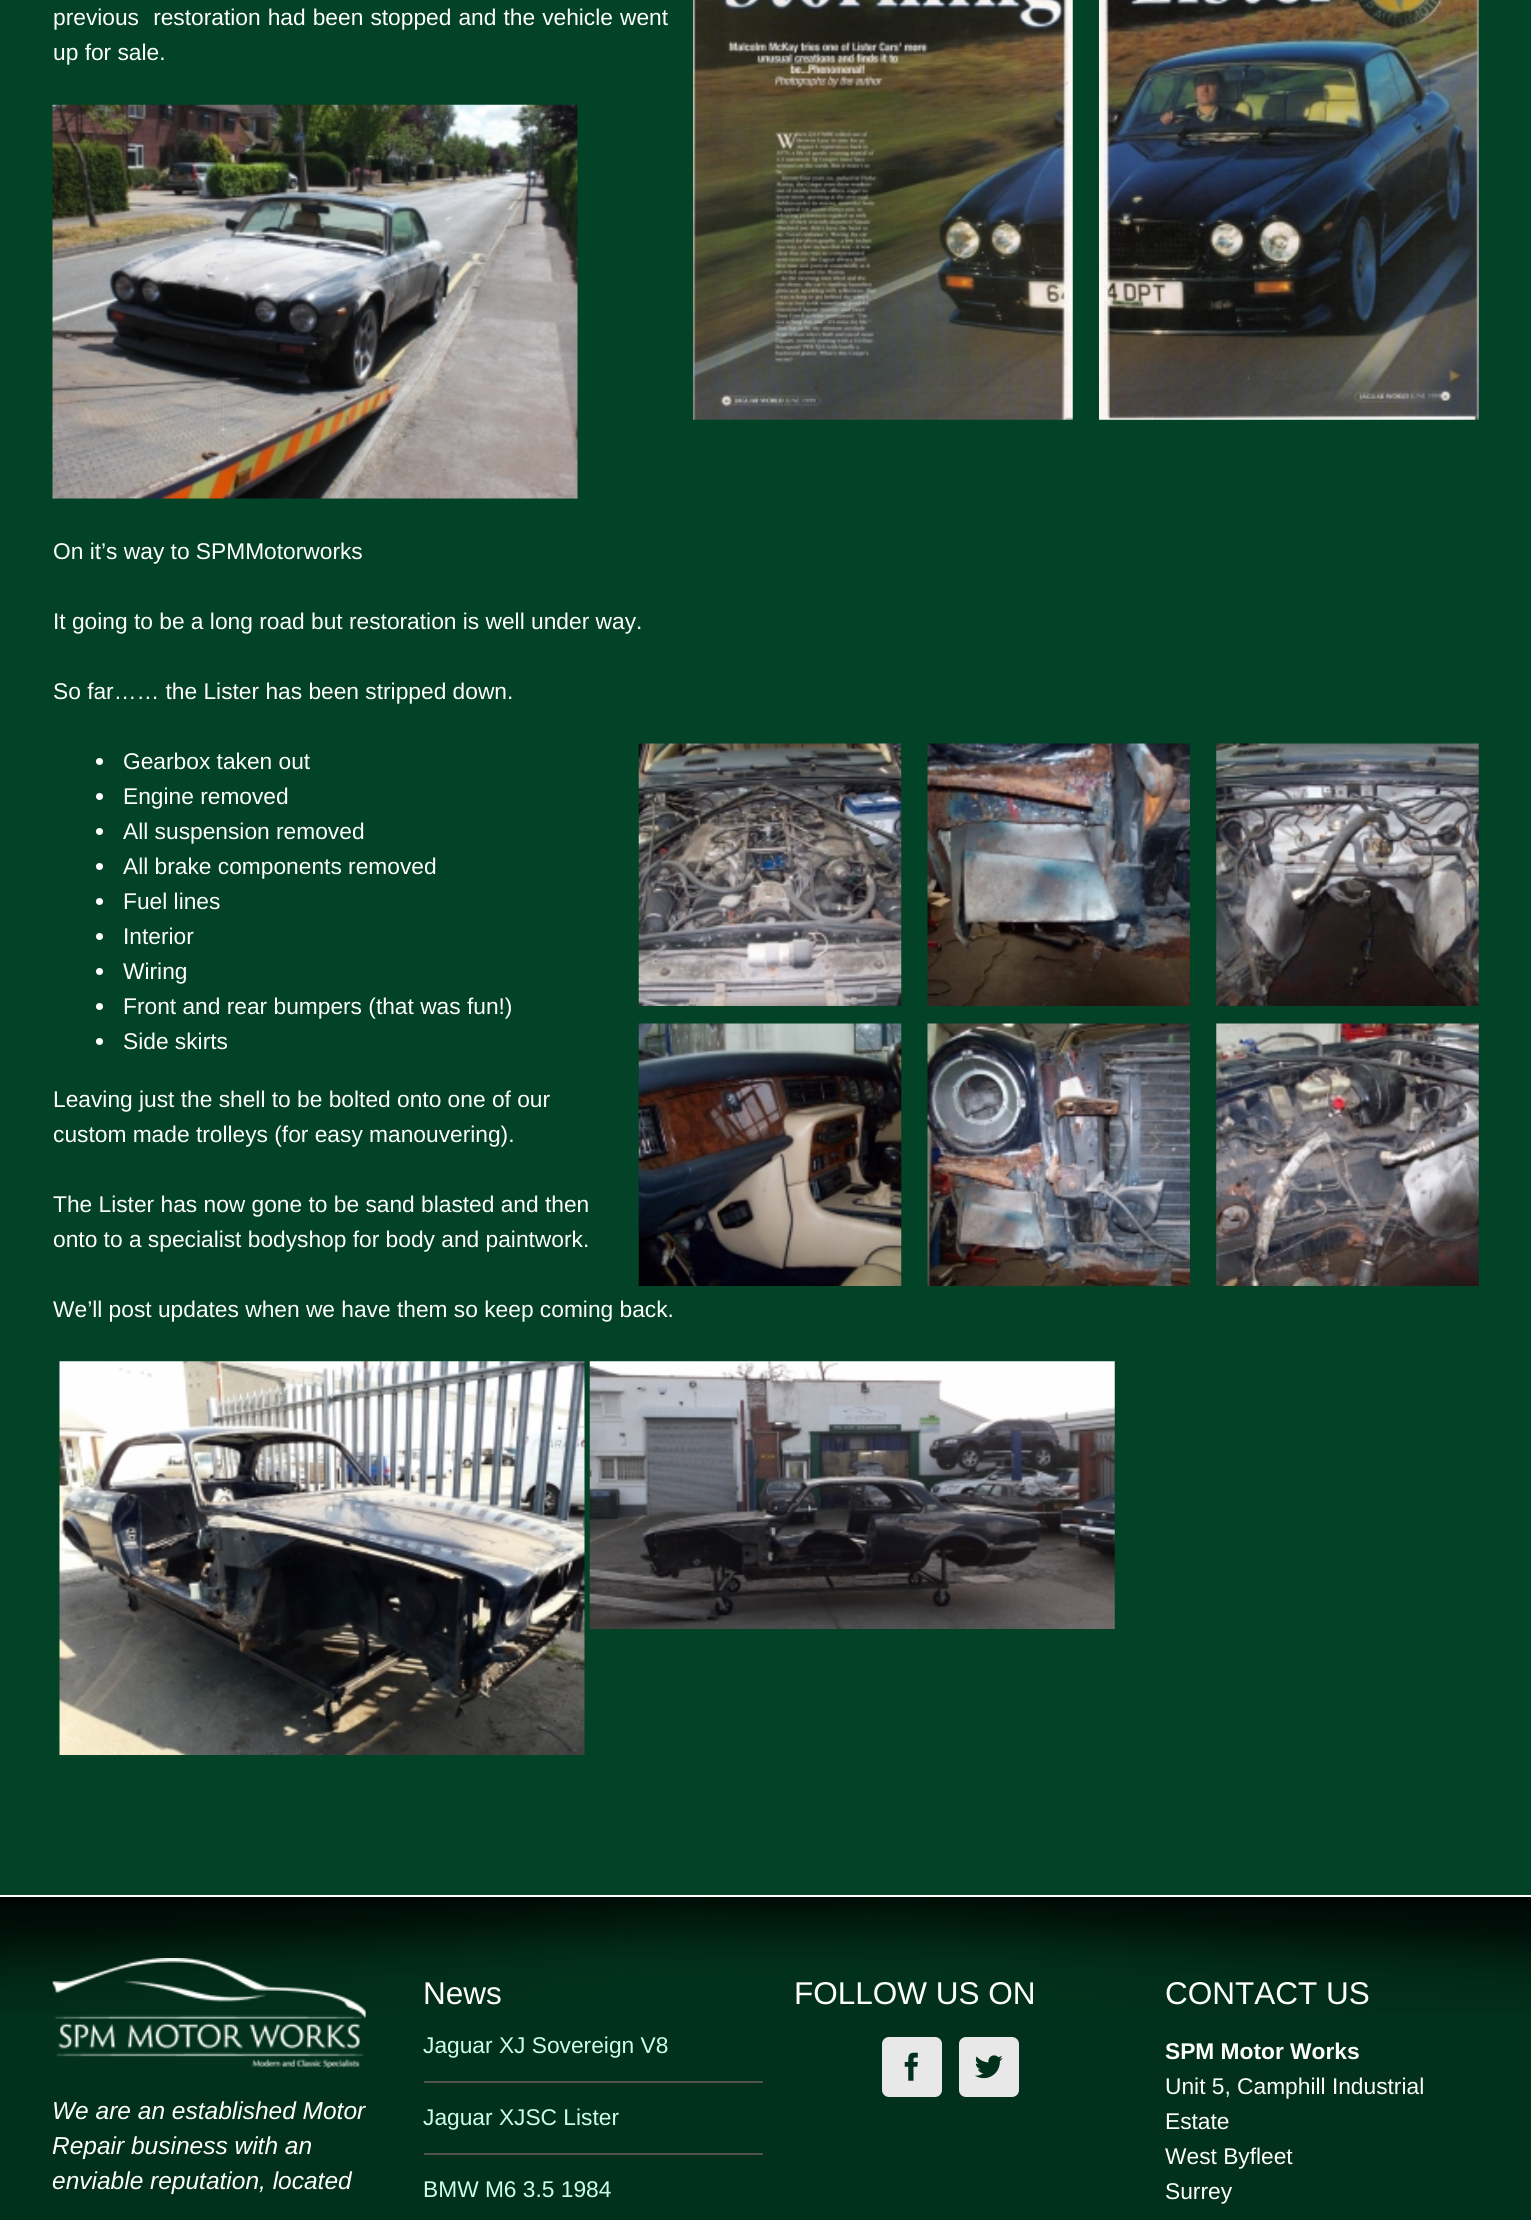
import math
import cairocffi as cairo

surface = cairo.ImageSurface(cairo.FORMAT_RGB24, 1531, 2220)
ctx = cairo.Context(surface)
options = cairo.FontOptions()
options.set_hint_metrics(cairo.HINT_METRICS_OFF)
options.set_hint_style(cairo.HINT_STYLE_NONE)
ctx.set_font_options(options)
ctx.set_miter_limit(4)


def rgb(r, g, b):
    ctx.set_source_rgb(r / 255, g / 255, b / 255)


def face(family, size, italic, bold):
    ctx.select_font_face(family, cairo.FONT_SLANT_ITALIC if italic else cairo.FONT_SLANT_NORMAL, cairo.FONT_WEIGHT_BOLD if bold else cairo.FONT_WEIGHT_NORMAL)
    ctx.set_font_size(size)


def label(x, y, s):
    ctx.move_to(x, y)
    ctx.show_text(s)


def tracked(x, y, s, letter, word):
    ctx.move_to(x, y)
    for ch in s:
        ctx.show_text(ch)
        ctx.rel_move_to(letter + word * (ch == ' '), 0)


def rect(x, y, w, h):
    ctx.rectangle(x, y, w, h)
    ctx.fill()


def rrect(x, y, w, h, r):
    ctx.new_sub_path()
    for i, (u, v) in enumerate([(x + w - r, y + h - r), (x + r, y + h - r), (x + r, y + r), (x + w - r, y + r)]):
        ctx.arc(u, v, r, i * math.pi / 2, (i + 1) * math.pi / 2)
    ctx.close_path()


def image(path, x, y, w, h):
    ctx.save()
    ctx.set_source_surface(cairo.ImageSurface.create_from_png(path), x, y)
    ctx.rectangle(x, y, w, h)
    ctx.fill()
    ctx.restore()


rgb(2, 66, 38)
ctx.paint()
face('Liberation Sans', 22.75, 0, 0)
rgb(255, 255, 255)
tracked(53, 25, 'previous  restoration had been stopped and the vehicle went', 0, 0.75)
label(53, 60, 'up for sale.')
image('image0.png', 693, 0, 380, 420)
image('image1.png', 1099, 0, 380, 420)
image('image2.png', 52, 104, 526, 395)
label(53, 559, 'On it’s way to SPMMotorworks')
label(53, 629, 'It going to be a long road but restoration is well under way.')
label(53, 699, 'So far…… the Lister has been stripped down.')
ctx.new_path()
ctx.arc(99.5, 761.5, 3.5, 0, 2 * math.pi)
ctx.fill()
label(123, 769, 'Gearbox taken out')
image('image3.png', 638, 743, 264, 263)
image('image4.png', 927, 743, 263, 263)
image('image5.png', 1216, 743, 263, 263)
ctx.arc(99.5, 796.5, 3.5, 0, 2 * math.pi)
ctx.fill()
label(123, 804, 'Engine removed')
ctx.new_path()
ctx.arc(99.5, 831.5, 3.5, 0, 2 * math.pi)
ctx.fill()
label(123, 839, 'All suspension removed')
ctx.new_path()
ctx.arc(99.5, 866.5, 3.5, 0, 2 * math.pi)
ctx.fill()
label(123, 874, 'All brake components removed')
ctx.new_path()
ctx.arc(99.5, 901.5, 3.5, 0, 2 * math.pi)
ctx.fill()
label(123, 909, 'Fuel lines')
ctx.new_path()
ctx.arc(99.5, 936.5, 3.5, 0, 2 * math.pi)
ctx.fill()
label(123, 944, 'Interior')
ctx.new_path()
ctx.arc(99.5, 971.5, 3.5, 0, 2 * math.pi)
ctx.fill()
label(123, 979, 'Wiring')
ctx.new_path()
ctx.arc(99.5, 1006.5, 3.5, 0, 2 * math.pi)
ctx.fill()
label(123, 1014, 'Front and rear bumpers (that was fun!)')
ctx.new_path()
ctx.arc(99.5, 1041.5, 3.5, 0, 2 * math.pi)
ctx.fill()
label(123, 1049, 'Side skirts')
image('image6.png', 638, 1023, 264, 263)
image('image7.png', 927, 1023, 263, 263)
image('image8.png', 1216, 1023, 263, 263)
label(53, 1107, 'Leaving just the shell to be bolted onto one of our')
label(53, 1142, 'custom made trolleys (for easy manouvering).')
label(53, 1212, 'The Lister has now gone to be sand blasted and then')
label(53, 1247, 'onto to a specialist bodyshop for body and paintwork.')
label(53, 1317, 'We’ll post updates when we have them so keep coming back.')
image('image9.png', 59, 1361, 526, 394)
image('image10.png', 589, 1361, 526, 268)
rgb(1, 49, 28)
rect(0, 1897, 1531, 323)
image('image11.png', 0, 1897, 1531, 117)
rgb(255, 255, 255)
rect(0, 1895, 1531, 2)
image('image12.png', 52, 1958, 314, 110)
face('Liberation Sans', 24.5, 1, 0)
label(52, 2119, 'We are an established Motor')
label(52, 2154, 'Repair business with an')
label(52, 2189, 'enviable reputation, located')
face('Liberation Sans', 31.5, 0, 0)
label(423, 2004, 'News')
rgb(80, 81, 82)
rect(424, 2081, 339, 2)
face('Liberation Sans', 22.75, 0, 0)
rgb(204, 255, 233)
label(423, 2053, 'Jaguar XJ Sovereign V8')
rgb(80, 81, 82)
rect(424, 2153, 339, 2)
rgb(204, 255, 233)
label(423, 2125, 'Jaguar XJSC Lister')
label(423, 2197, 'BMW M6 3.5 1984')
face('Liberation Sans', 31.5, 0, 0)
rgb(255, 255, 255)
label(794, 2004, 'FOLLOW US ON')
rgb(232, 232, 232)
rrect(883, 2038, 58, 58, 6)
ctx.fill_preserve()
ctx.stroke()
image('image13.png', 904, 2052, 14, 29)
rrect(960, 2038, 58, 58, 6)
ctx.fill_preserve()
ctx.stroke()
image('image14.png', 975, 2055, 28, 24)
rgb(255, 255, 255)
label(1165, 2004, 'CONTACT US')
face('Liberation Sans', 22.75, 0, 1)
label(1165, 2059, 'SPM Motor Works')
face('Liberation Sans', 22.75, 0, 0)
label(1165, 2094, 'Unit 5, Camphill Industrial')
label(1165, 2129, 'Estate')
label(1165, 2164, 'West Byfleet')
label(1165, 2199, 'Surrey')
surface.write_to_png('render.png')
